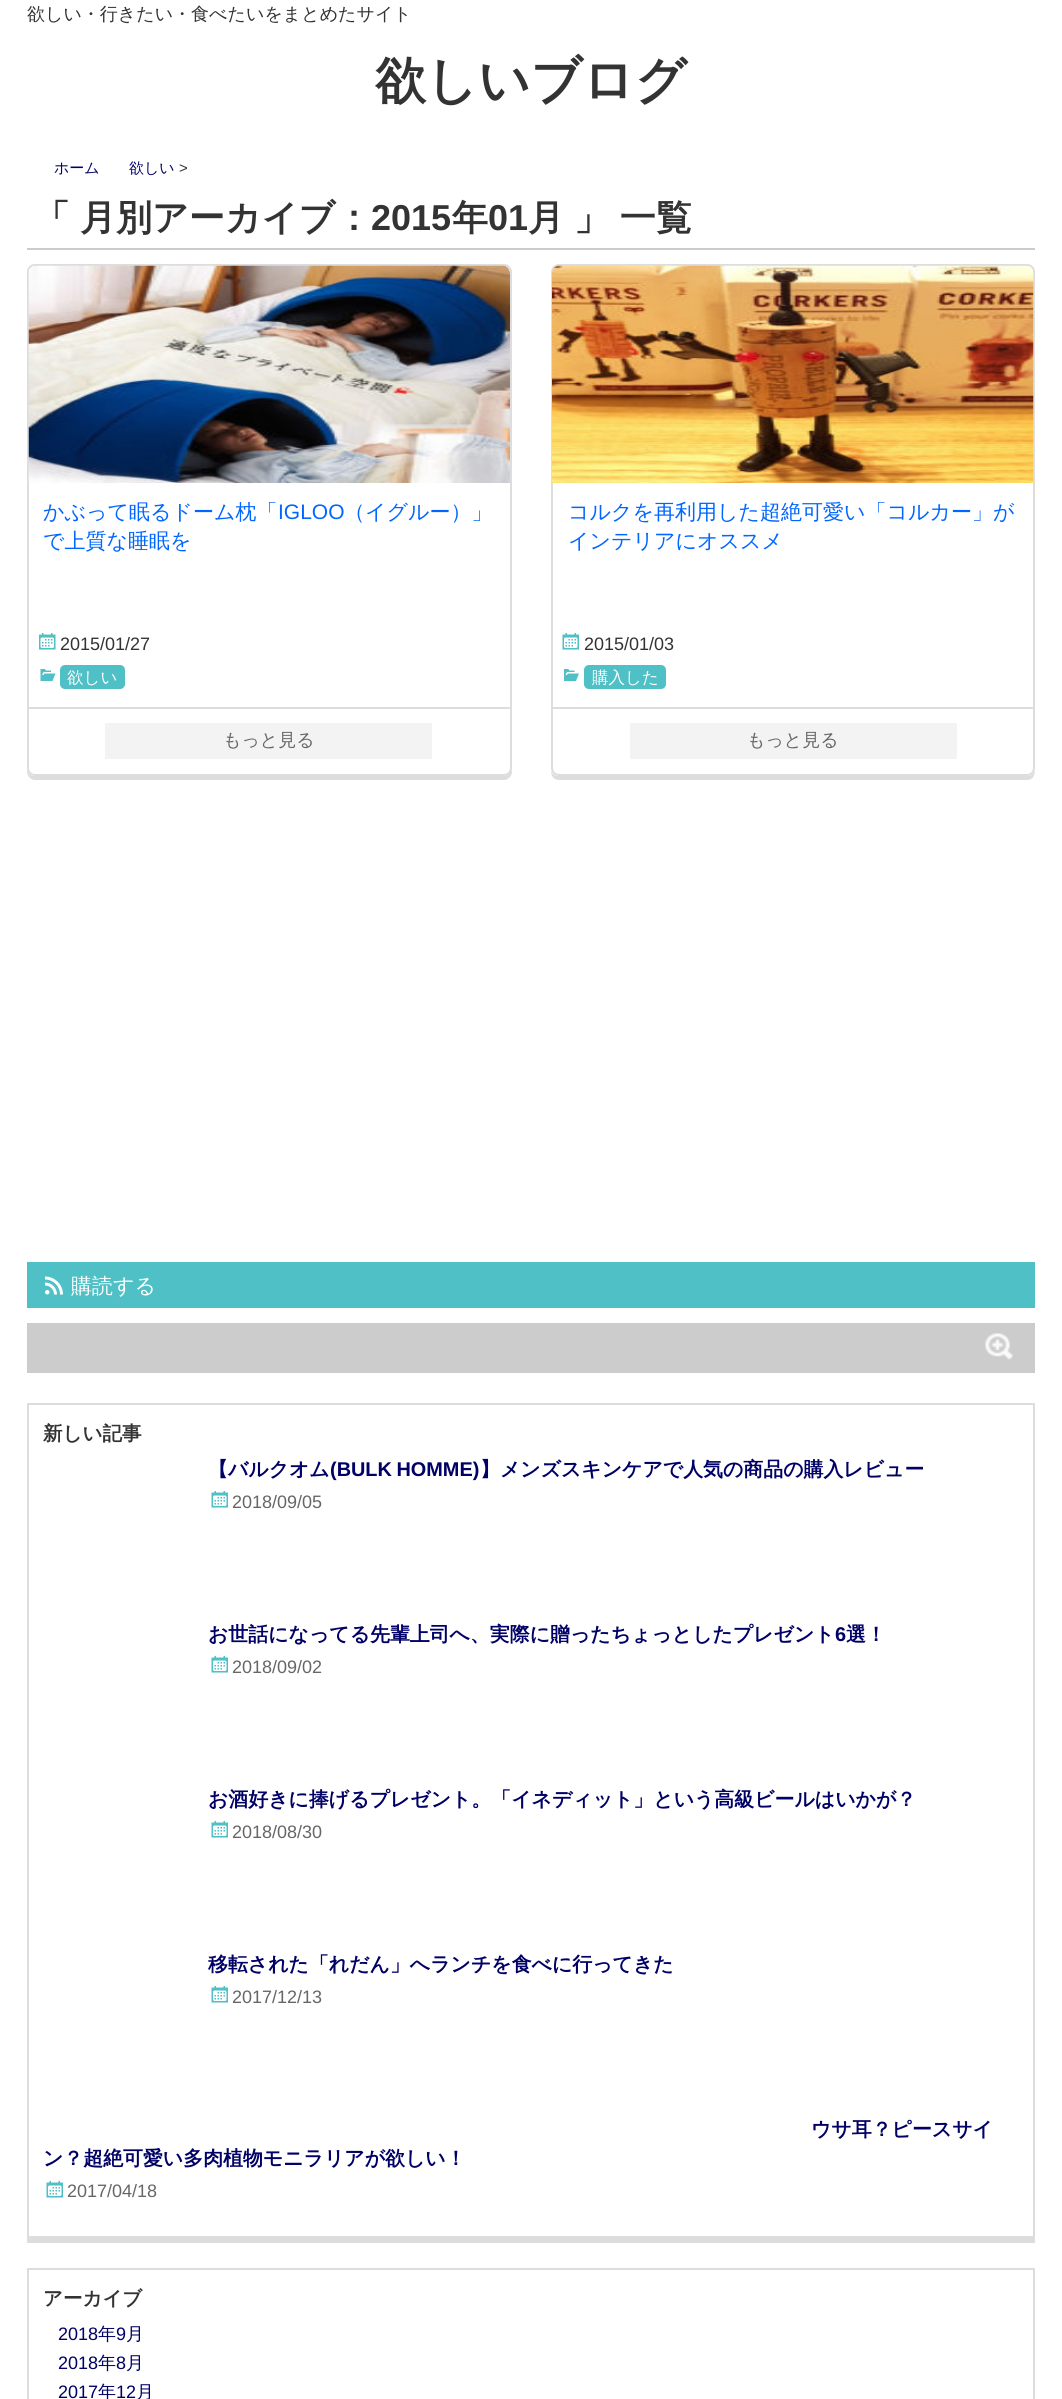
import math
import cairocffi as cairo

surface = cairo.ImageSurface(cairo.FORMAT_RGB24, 1062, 2399)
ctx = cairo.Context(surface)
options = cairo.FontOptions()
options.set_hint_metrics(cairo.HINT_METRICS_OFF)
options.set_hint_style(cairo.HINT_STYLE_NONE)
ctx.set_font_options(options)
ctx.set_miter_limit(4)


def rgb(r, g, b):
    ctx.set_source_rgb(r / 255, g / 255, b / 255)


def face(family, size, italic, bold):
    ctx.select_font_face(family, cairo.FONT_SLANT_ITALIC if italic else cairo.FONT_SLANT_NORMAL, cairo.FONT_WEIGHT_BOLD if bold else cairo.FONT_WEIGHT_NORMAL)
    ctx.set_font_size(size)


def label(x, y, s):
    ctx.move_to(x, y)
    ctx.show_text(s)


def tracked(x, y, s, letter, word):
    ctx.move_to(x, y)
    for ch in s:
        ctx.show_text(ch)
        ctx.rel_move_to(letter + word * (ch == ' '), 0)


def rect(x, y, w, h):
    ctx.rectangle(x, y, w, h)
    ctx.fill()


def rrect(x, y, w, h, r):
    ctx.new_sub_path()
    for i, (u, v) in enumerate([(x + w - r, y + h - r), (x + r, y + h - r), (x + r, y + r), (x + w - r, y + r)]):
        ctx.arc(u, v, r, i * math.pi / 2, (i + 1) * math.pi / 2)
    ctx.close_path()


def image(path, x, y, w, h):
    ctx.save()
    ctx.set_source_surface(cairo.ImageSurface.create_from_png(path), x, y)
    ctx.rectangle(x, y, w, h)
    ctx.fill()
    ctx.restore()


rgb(255, 255, 255)
ctx.paint()
face('WenQuanYi Zen Hei Medium', 18, 0, 0)
rgb(51, 51, 51)
label(27, 20, '欲しい・行きたい・食べたいをまとめたサイト')
face('WenQuanYi Zen Hei', 51, 0, 1)
label(375, 98, '欲しいブログ')
face('WenQuanYi Zen Hei Medium', 15, 0, 0)
rgb(0, 0, 102)
label(54, 173, 'ホーム')
label(129, 173, '欲しい')
face('Liberation Sans', 15, 0, 0)
rgb(51, 51, 51)
label(179, 173, '>')
rgb(204, 204, 204)
rect(27, 248, 1008, 2)
face('WenQuanYi Zen Hei', 36, 0, 1)
rgb(51, 51, 51)
label(34, 230, '「')
label(80, 230, '月別アーカイブ：')
face('Liberation Sans', 36, 0, 1)
label(371, 230, '2015')
face('WenQuanYi Zen Hei', 36, 0, 1)
label(452, 230, '年')
face('Liberation Sans', 36, 0, 1)
label(488, 230, '01')
face('WenQuanYi Zen Hei', 36, 0, 1)
label(528, 230, '月')
tracked(574, 230, '」 一覧', 0, -1)
rgb(221, 221, 221)
ctx.new_path()
ctx.move_to(27, 768)
ctx.line_to(27, 772)
ctx.curve_to(27, 776, 31, 780, 35, 780)
ctx.line_to(504, 780)
ctx.curve_to(508, 780, 512, 776, 512, 772)
ctx.line_to(512, 277)
ctx.line_to(512, 274)
ctx.line_to(512, 768)
ctx.curve_to(512, 772, 508, 776, 504, 776)
ctx.line_to(34, 776)
ctx.curve_to(30, 776, 27, 772, 27, 768)
ctx.close_path()
ctx.fill()
rrect(28, 265, 483, 510, 7)
ctx.stroke()
image('image0.png', 28, 265, 482, 218)
face('WenQuanYi Zen Hei Medium', 21, 0, 0)
rgb(0, 102, 255)
label(43, 519, 'かぶって眠るドーム枕「')
face('Liberation Sans', 21, 0, 0)
label(278, 519, 'IGLOO')
face('WenQuanYi Zen Hei Medium', 21, 0, 0)
label(344, 519, '（イグルー）」')
label(43, 548, 'で上質な睡眠を')
rgb(221, 221, 221)
rect(29, 707, 481, 2)
image('image1.png', 39, 633, 17, 17)
face('Liberation Sans', 18, 0, 0)
rgb(51, 51, 51)
label(60, 650, '2015/01/27')
image('image2.png', 40, 669, 16, 12)
rgb(79, 192, 198)
rrect(60, 665, 65, 24, 5)
ctx.fill()
face('WenQuanYi Zen Hei Medium', 16.5, 0, 0)
rgb(255, 255, 255)
label(67, 683, '欲しい')
rgb(243, 243, 243)
rect(105, 723, 327, 36)
face('WenQuanYi Zen Hei Medium', 18, 0, 0)
rgb(102, 102, 102)
label(223, 746, 'もっと見る')
rgb(221, 221, 221)
ctx.new_path()
ctx.move_to(551, 771)
ctx.curve_to(551, 776, 554, 780, 559, 780)
ctx.line_to(1027, 780)
ctx.curve_to(1034, 780, 1035, 774, 1035, 768)
ctx.curve_to(1035, 772, 1032, 776, 1028, 776)
ctx.line_to(558, 776)
ctx.curve_to(555, 776, 552, 774, 551, 771)
ctx.close_path()
ctx.fill()
rrect(552, 265, 482, 510, 7)
ctx.stroke()
image('image3.png', 552, 265, 482, 218)
face('WenQuanYi Zen Hei Medium', 21, 0, 0)
rgb(0, 102, 255)
label(568, 519, 'コルクを再利用した超絶可愛い「コルカー」が')
label(568, 548, 'インテリアにオススメ')
rgb(221, 221, 221)
rect(552, 707, 482, 2)
image('image4.png', 562, 633, 17, 17)
face('Liberation Sans', 18, 0, 0)
rgb(51, 51, 51)
label(584, 650, '2015/01/03')
image('image5.png', 564, 669, 15, 12)
rgb(79, 192, 198)
rrect(584, 665, 82, 24, 5)
ctx.fill()
face('WenQuanYi Zen Hei Medium', 16.5, 0, 0)
rgb(255, 255, 255)
label(592, 683, '購入した')
rgb(243, 243, 243)
rect(630, 723, 327, 36)
face('WenQuanYi Zen Hei Medium', 18, 0, 0)
rgb(102, 102, 102)
label(747, 746, 'もっと見る')
rgb(79, 192, 198)
rect(27, 1262, 1008, 46)
image('image6.png', 45, 1276, 18, 19)
face('WenQuanYi Zen Hei Medium', 21, 0, 0)
rgb(255, 255, 255)
label(71, 1293, '購読する')
rgb(204, 204, 204)
rect(27, 1323, 1008, 50)
image('image7.png', 985, 1333, 28, 27)
rgb(221, 221, 221)
rect(27, 2238, 1008, 5)
ctx.rectangle(28, 1404, 1006, 833)
ctx.stroke()
face('WenQuanYi Zen Hei', 19.5, 0, 1)
rgb(51, 51, 51)
label(43, 1440, '新しい記事')
face('WenQuanYi Zen Hei', 19.9, 0, 1)
rgb(0, 0, 102)
label(208, 1476, '【バルクオム')
face('Liberation Sans', 19.9, 0, 1)
tracked(330, 1476, '(BULK HOMME)', 0, -1)
face('WenQuanYi Zen Hei', 19.9, 0, 1)
label(480, 1476, '】メンズスキンケアで人気の商品の購入レビュー')
image('image4.png', 211, 1491, 17, 17)
face('Liberation Sans', 18, 0, 0)
rgb(102, 102, 102)
label(232, 1508, '2018/09/05')
face('WenQuanYi Zen Hei', 19.9, 0, 1)
rgb(0, 0, 102)
label(208, 1641, 'お世話になってる先輩上司へ、実際に贈ったちょっとしたプレゼント')
face('Liberation Sans', 19.9, 0, 1)
label(835, 1641, '6')
face('WenQuanYi Zen Hei', 19.9, 0, 1)
label(846, 1641, '選！')
image('image4.png', 211, 1656, 17, 17)
face('Liberation Sans', 18, 0, 0)
rgb(102, 102, 102)
label(232, 1673, '2018/09/02')
face('WenQuanYi Zen Hei', 19.9, 0, 1)
rgb(0, 0, 102)
label(208, 1806, 'お酒好きに捧げるプレゼント。「イネディット」という高級ビールはいかが？')
image('image4.png', 211, 1821, 17, 17)
face('Liberation Sans', 18, 0, 0)
rgb(102, 102, 102)
label(232, 1838, '2018/08/30')
face('WenQuanYi Zen Hei', 19.9, 0, 1)
rgb(0, 0, 102)
label(208, 1971, '移転された「れだん」へランチを食べに行ってきた')
image('image4.png', 211, 1986, 17, 17)
face('Liberation Sans', 18, 0, 0)
rgb(102, 102, 102)
label(232, 2003, '2017/12/13')
face('WenQuanYi Zen Hei', 19.9, 0, 1)
rgb(0, 0, 102)
label(811, 2136, 'ウサ耳？ピースサイ')
label(43, 2165, 'ン？超絶可愛い多肉植物モニラリアが欲しい！')
image('image4.png', 46, 2181, 17, 17)
face('Liberation Sans', 18, 0, 0)
rgb(102, 102, 102)
label(67, 2197, '2017/04/18')
ctx.rectangle(28, 2269, 1006, 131)
rgb(221, 221, 221)
ctx.stroke()
face('WenQuanYi Zen Hei', 19.5, 0, 1)
rgb(51, 51, 51)
label(43, 2305, 'アーカイブ')
face('Liberation Sans', 18, 0, 0)
rgb(0, 0, 102)
label(58, 2340, '2018')
face('WenQuanYi Zen Hei Medium', 18, 0, 0)
label(98, 2340, '年')
face('Liberation Sans', 18, 0, 0)
label(116, 2340, '9')
face('WenQuanYi Zen Hei Medium', 18, 0, 0)
label(126, 2340, '月')
face('Liberation Sans', 18, 0, 0)
label(58, 2369, '2018')
face('WenQuanYi Zen Hei Medium', 18, 0, 0)
label(98, 2369, '年')
face('Liberation Sans', 18, 0, 0)
label(116, 2369, '8')
face('WenQuanYi Zen Hei Medium', 18, 0, 0)
label(126, 2369, '月')
face('Liberation Sans', 18, 0, 0)
label(58, 2398, '2017')
face('WenQuanYi Zen Hei Medium', 18, 0, 0)
label(98, 2398, '年')
face('Liberation Sans', 18, 0, 0)
label(116, 2398, '12')
face('WenQuanYi Zen Hei Medium', 18, 0, 0)
label(136, 2398, '月')
surface.write_to_png('render.png')
